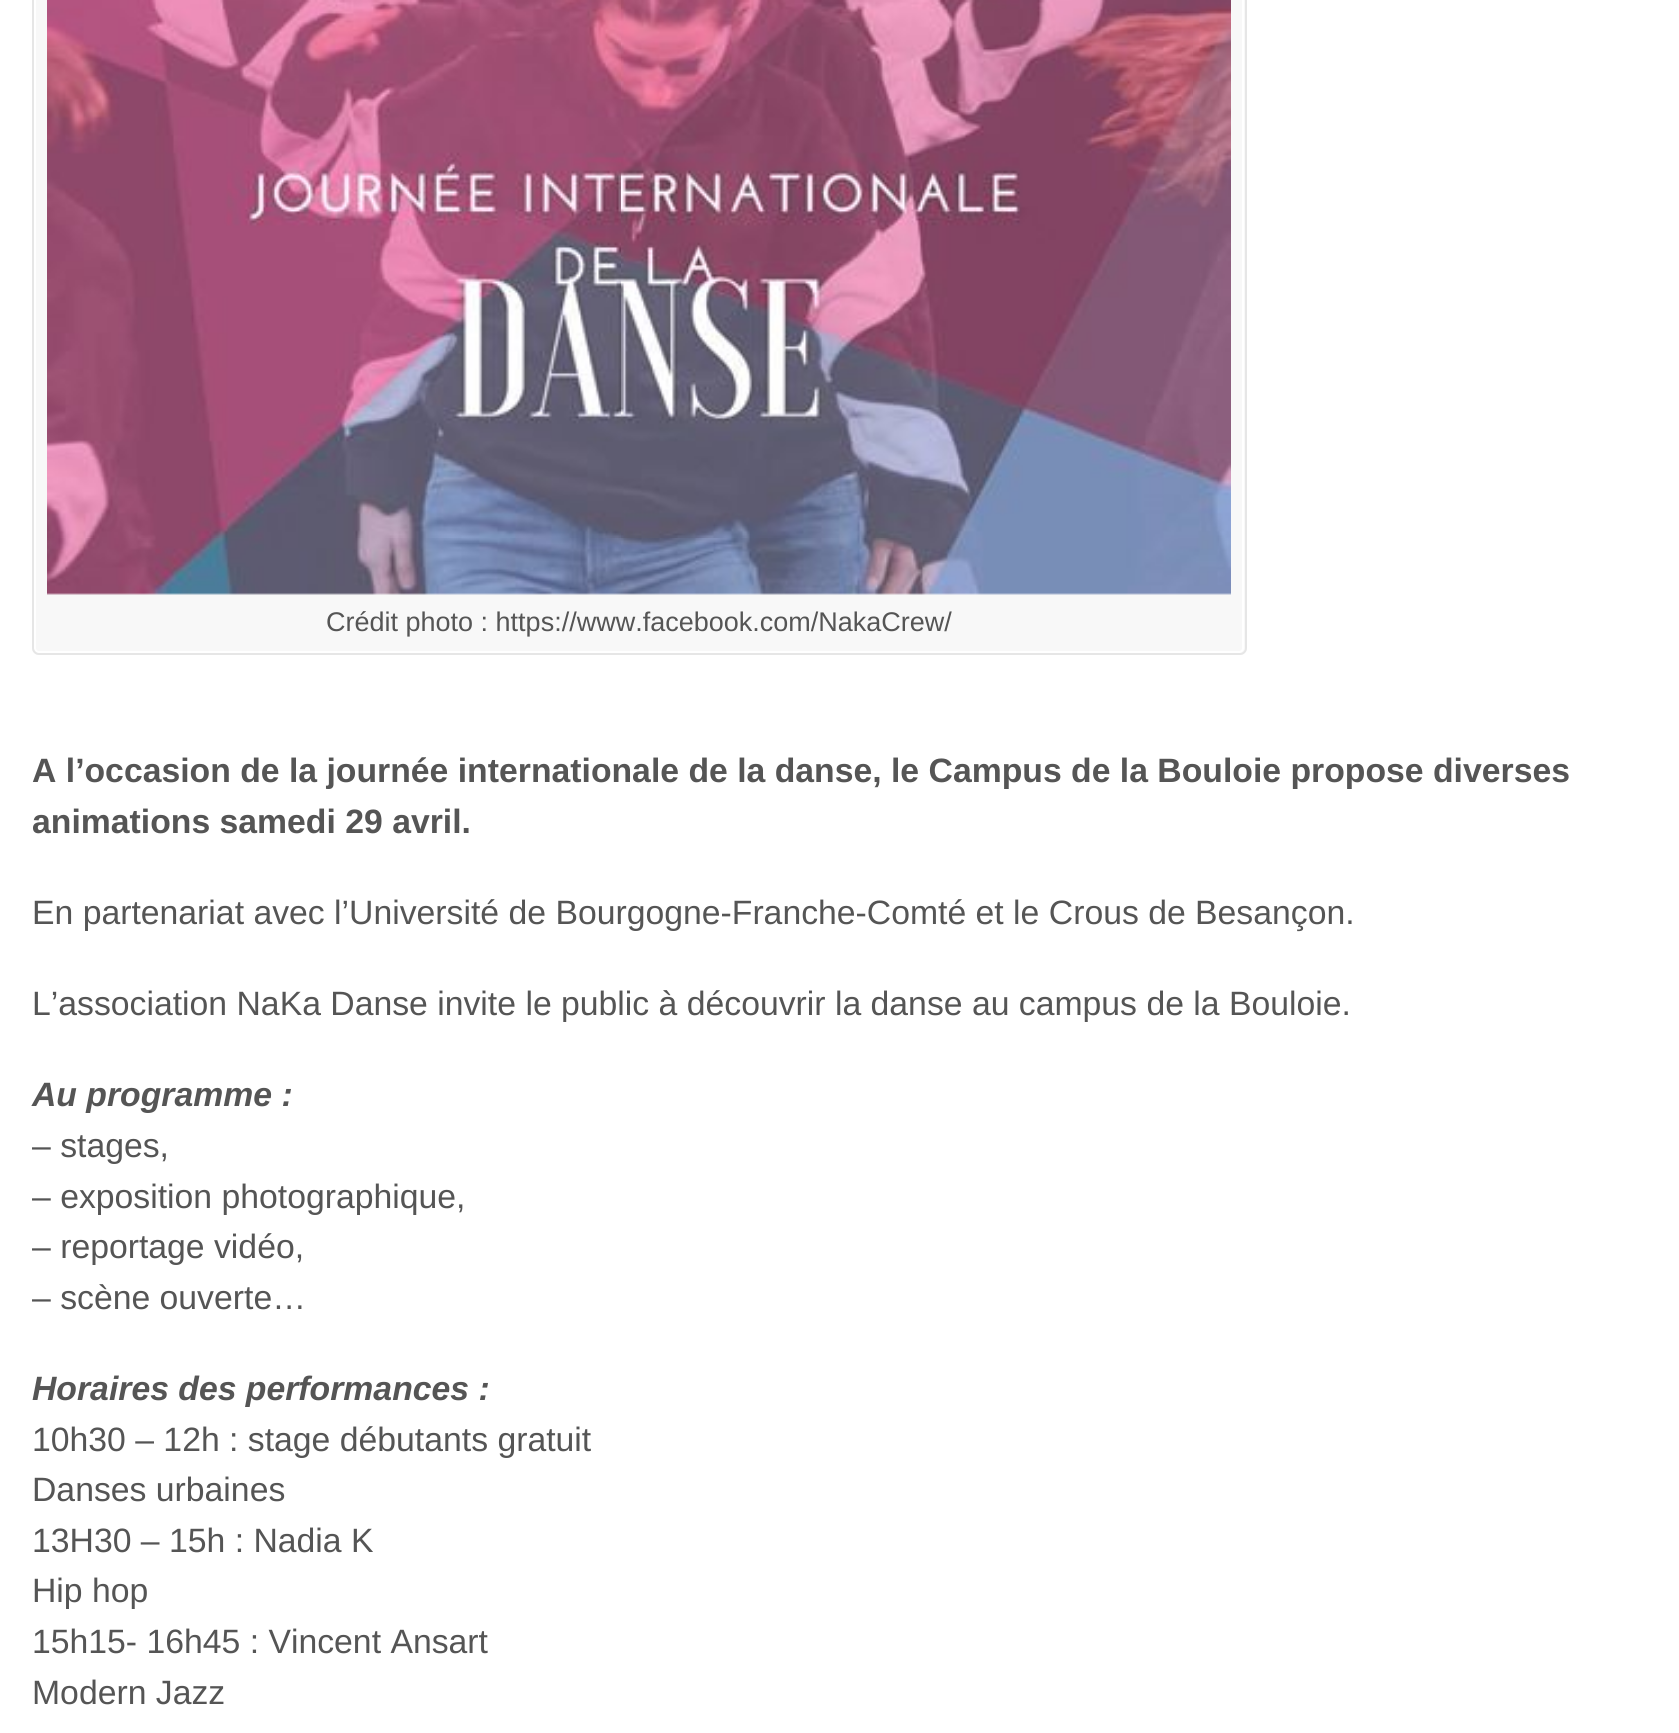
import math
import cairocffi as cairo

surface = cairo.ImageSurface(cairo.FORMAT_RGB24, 1679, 1733)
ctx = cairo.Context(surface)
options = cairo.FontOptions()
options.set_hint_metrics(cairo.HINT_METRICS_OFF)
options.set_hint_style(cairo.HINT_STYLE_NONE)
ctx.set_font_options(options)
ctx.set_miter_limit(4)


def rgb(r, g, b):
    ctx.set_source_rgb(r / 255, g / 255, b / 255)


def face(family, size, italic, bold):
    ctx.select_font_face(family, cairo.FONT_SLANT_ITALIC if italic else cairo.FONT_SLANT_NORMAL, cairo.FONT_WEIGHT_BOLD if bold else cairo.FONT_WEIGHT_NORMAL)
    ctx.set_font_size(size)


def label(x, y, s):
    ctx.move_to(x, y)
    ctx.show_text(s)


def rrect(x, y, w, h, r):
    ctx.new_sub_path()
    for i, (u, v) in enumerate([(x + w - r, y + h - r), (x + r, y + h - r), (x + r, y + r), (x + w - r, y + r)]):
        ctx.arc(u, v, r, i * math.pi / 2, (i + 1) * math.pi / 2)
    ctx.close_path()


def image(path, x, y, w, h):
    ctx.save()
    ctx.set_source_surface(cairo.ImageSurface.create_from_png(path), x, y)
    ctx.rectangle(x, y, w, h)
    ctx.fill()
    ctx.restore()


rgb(255, 255, 255)
ctx.paint()
rgb(248, 248, 248)
rrect(32, -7, 1215, 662, 7)
ctx.fill()
rrect(35, -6, 1208, 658, 4)
rgb(255, 255, 255)
ctx.stroke()
rrect(33, -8, 1213, 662, 6)
rgb(230, 230, 230)
ctx.stroke()
image('image0.png', 47, 0, 1184, 595)
face('Liberation Sans', 27, 0, 0)
rgb(85, 85, 85)
label(326, 631, 'Crédit photo : https://www.facebook.com/NakaCrew/')
face('Liberation Sans', 33.75, 0, 1)
label(32, 782, 'A l’occasion de la journée internationale de la danse, le Campus de la Bouloie propose diverses')
label(32, 833, 'animations samedi 29 avril.')
face('Liberation Sans', 33.75, 0, 0)
label(32, 924, 'En partenariat avec l’Université de Bourgogne-Franche-Comté et le Crous de Besançon.')
label(32, 1015, 'L’association NaKa Danse invite le public à découvrir la danse au campus de la Bouloie.')
face('Liberation Sans', 33.75, 1, 1)
label(32, 1106, 'Au programme :')
face('Liberation Sans', 33.75, 0, 0)
label(32, 1157, '– stages,')
label(32, 1208, '– exposition photographique,')
label(32, 1258, '– reportage vidéo,')
label(32, 1309, '– scène ouverte…')
face('Liberation Sans', 33.75, 1, 1)
label(32, 1400, 'Horaires des performances :')
face('Liberation Sans', 33.75, 0, 0)
label(32, 1451, '10h30 – 12h : stage débutants gratuit')
label(32, 1501, 'Danses urbaines')
label(32, 1552, '13H30 – 15h : Nadia K')
label(32, 1602, 'Hip hop')
label(32, 1653, '15h15- 16h45 : Vincent Ansart')
label(32, 1704, 'Modern Jazz')
surface.write_to_png('render.png')
